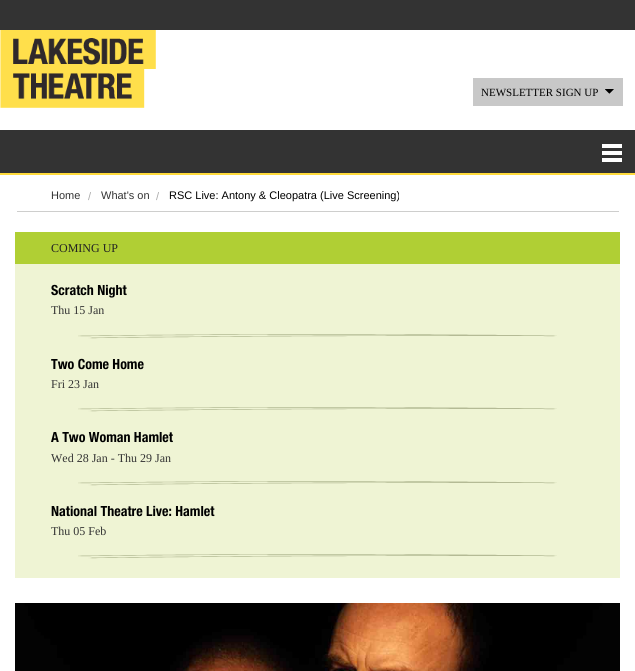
import math
import cairocffi as cairo

surface = cairo.ImageSurface(cairo.FORMAT_RGB24, 635, 671)
ctx = cairo.Context(surface)
options = cairo.FontOptions()
options.set_hint_metrics(cairo.HINT_METRICS_OFF)
options.set_hint_style(cairo.HINT_STYLE_NONE)
ctx.set_font_options(options)
ctx.set_miter_limit(4)


def rgb(r, g, b):
    ctx.set_source_rgb(r / 255, g / 255, b / 255)


def face(family, size, italic, bold):
    ctx.select_font_face(family, cairo.FONT_SLANT_ITALIC if italic else cairo.FONT_SLANT_NORMAL, cairo.FONT_WEIGHT_BOLD if bold else cairo.FONT_WEIGHT_NORMAL)
    ctx.set_font_size(size)


def label(x, y, s):
    ctx.move_to(x, y)
    ctx.show_text(s)


def rect(x, y, w, h):
    ctx.rectangle(x, y, w, h)
    ctx.fill()


def image(path, x, y, w, h):
    ctx.save()
    ctx.set_source_surface(cairo.ImageSurface.create_from_png(path), x, y)
    ctx.rectangle(x, y, w, h)
    ctx.fill()
    ctx.restore()


rgb(255, 255, 255)
ctx.paint()
rgb(51, 51, 51)
rect(0, 0, 635, 30)
image('image0.png', 0, 30, 156, 78)
rgb(200, 200, 200)
rect(473, 78, 150, 28)
image('image1.png', 605, 89, 9, 5)
face('Liberation Serif', 11, 0, 0)
rgb(0, 0, 0)
label(481, 96, 'NEWSLETTER SIGN UP')
rgb(51, 51, 51)
rect(0, 130, 635, 43)
rgb(255, 219, 60)
rect(0, 173, 635, 2)
rgb(255, 255, 255)
rect(602, 158, 20, 4)
rect(602, 151, 20, 4)
rect(602, 144, 20, 4)
rgb(206, 206, 205)
rect(17, 211, 602, 1)
face('Liberation Sans', 11, 0, 0)
rgb(51, 51, 51)
label(51, 199, 'Home')
rgb(170, 170, 170)
label(88, 200, '/')
rgb(51, 51, 51)
label(101, 199, 'What\'s on')
rgb(170, 170, 170)
label(156, 200, '/')
rgb(0, 0, 0)
label(169, 199, 'RSC Live: Antony & Cleopatra (Live Screening)')
rgb(239, 244, 212)
rect(15, 264, 605, 314)
rgb(176, 207, 52)
rect(15, 232, 605, 32)
face('Liberation Serif', 12, 0, 0)
rgb(34, 34, 34)
label(51, 252, 'COMING UP')
image('image2.png', 78, 334, 479, 5)
face('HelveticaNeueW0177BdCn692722', 14, 0, 0)
rgb(0, 0, 0)
label(51, 295, 'Scratch Night')
face('Liberation Serif', 12, 0, 0)
rgb(51, 51, 51)
label(51, 314, 'Thu 15 Jan')
image('image2.png', 78, 407, 479, 5)
face('HelveticaNeueW0177BdCn692722', 14, 0, 0)
rgb(0, 0, 0)
label(51, 369, 'Two Come Home')
face('Liberation Serif', 12, 0, 0)
rgb(51, 51, 51)
label(51, 388, 'Fri 23 Jan')
image('image2.png', 78, 481, 479, 5)
face('HelveticaNeueW0177BdCn692722', 14, 0, 0)
rgb(0, 0, 0)
label(51, 442, 'A Two Woman Hamlet')
face('Liberation Serif', 12, 0, 0)
rgb(51, 51, 51)
label(51, 462, 'Wed 28 Jan - Thu 29 Jan')
image('image2.png', 78, 554, 479, 5)
face('HelveticaNeueW0177BdCn692722', 14, 0, 0)
rgb(0, 0, 0)
label(51, 516, 'National Theatre Live: Hamlet')
face('Liberation Serif', 12, 0, 0)
rgb(51, 51, 51)
label(51, 535, 'Thu 05 Feb')
image('image3.png', 15, 603, 605, 68)
surface.write_to_png('render.png')
